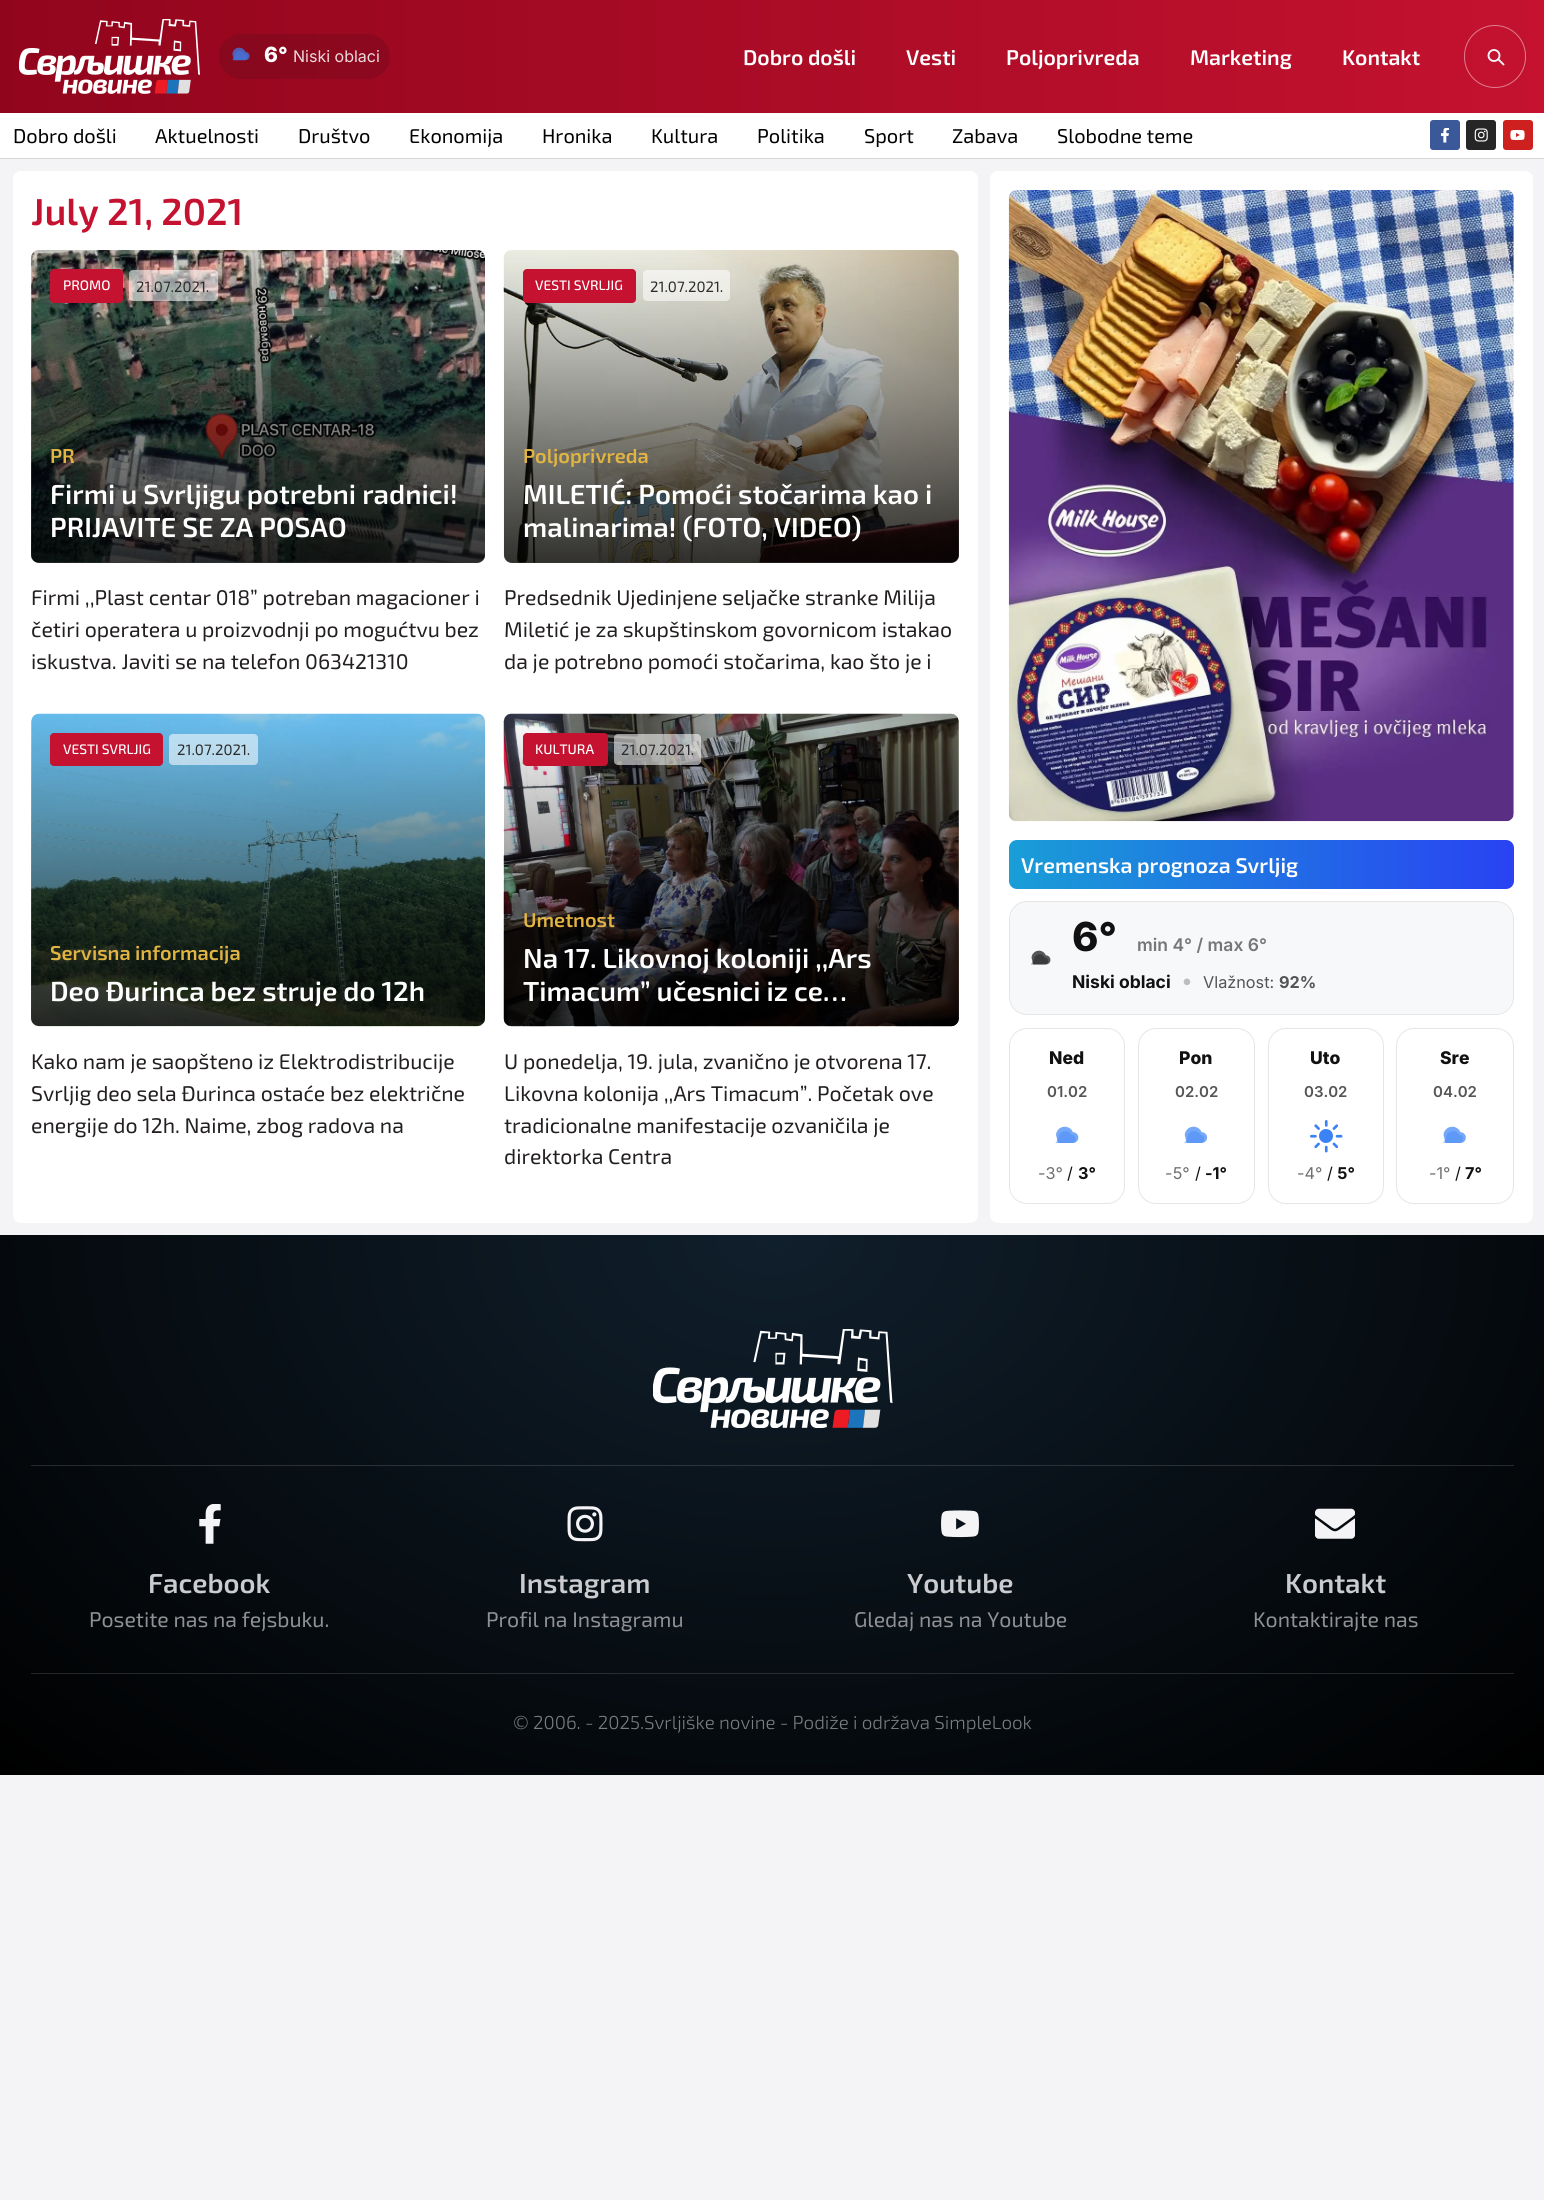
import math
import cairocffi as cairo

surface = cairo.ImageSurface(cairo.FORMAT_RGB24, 1544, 2200)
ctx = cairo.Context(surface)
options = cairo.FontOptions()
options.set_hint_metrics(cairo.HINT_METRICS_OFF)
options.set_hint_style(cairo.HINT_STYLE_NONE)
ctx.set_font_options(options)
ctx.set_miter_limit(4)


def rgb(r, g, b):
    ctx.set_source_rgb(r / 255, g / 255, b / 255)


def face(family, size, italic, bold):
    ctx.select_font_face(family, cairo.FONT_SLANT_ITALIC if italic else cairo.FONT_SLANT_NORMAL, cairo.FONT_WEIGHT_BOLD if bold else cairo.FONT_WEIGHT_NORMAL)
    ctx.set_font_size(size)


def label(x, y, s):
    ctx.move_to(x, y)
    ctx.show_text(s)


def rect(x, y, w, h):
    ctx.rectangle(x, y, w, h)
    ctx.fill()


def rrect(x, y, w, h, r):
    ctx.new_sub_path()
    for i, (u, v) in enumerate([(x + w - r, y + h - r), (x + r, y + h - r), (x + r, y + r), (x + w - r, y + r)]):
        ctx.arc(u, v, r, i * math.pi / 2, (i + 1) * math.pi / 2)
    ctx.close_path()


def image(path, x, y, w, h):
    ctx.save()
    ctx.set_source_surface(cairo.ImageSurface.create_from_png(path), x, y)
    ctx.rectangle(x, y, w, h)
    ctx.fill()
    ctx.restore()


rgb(244, 244, 247)
ctx.paint()
gradient = cairo.LinearGradient(0, 56, 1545, 56)
gradient.add_color_stop_rgba(0, 0.569, 0.02, 0.11, 1)
gradient.add_color_stop_rgba(1, 0.769, 0.071, 0.188, 1)
ctx.set_source(gradient)
rect(0, 0, 1544, 113)
image('image0.png', 19, 19, 181, 75)
ctx.set_source_rgba(0.282, 0.051, 0.09, 0.21)
rrect(219, 34, 171, 45, 22.5)
ctx.fill()
image('image1.png', 232, 47, 18, 14)
face('Inter ExtraBold', 21, 0, 0)
rgb(255, 255, 255)
label(264, 62, '6°')
face('Inter', 16, 0, 0)
rgb(238, 218, 221)
label(293, 62, 'Niski oblaci')
face('Exo 2 SemiBold', 21.25, 0, 0)
rgb(255, 255, 255)
label(743, 65, 'Dobro došli')
label(906, 65, 'Vesti')
label(1006, 65, 'Poljoprivreda')
label(1190, 65, 'Marketing')
label(1342, 65, 'Kontakt')
rrect(1464.5, 25.5, 61, 62, 30.5)
rgb(222, 124, 141)
ctx.set_line_width(1)
ctx.stroke()
ctx.arc(1494, 55.5, 5.5, 0, 2 * math.pi)
rgb(244, 244, 247)
ctx.set_line_width(1.9)
ctx.stroke()
ctx.new_path()
ctx.move_to(1498.5, 59.5)
ctx.line_to(1503.5, 64.5)
ctx.set_line_cap(cairo.LINE_CAP_ROUND)
ctx.stroke()
rgb(255, 255, 255)
rect(0, 113, 1544, 45)
rgb(214, 214, 214)
rect(0, 158, 1544, 1)
face('Exo 2', 20, 0, 0)
rgb(0, 0, 0)
label(13, 143, 'Dobro došli')
label(155, 143, 'Aktuelnosti')
label(298, 143, 'Društvo')
label(409, 143, 'Ekonomija')
label(542, 143, 'Hronika')
label(651, 143, 'Kultura')
label(757, 143, 'Politika')
label(864, 143, 'Sport')
label(952, 143, 'Zabava')
label(1057, 143, 'Slobodne teme')
rgb(59, 89, 152)
rrect(1430, 120, 30, 30, 3)
ctx.fill()
image('image2.png', 1441, 128, 8, 15)
rgb(38, 38, 38)
rrect(1466, 120, 30, 30, 3)
ctx.fill()
image('image3.png', 1474, 128, 14, 14)
rgb(205, 32, 31)
rrect(1503, 120, 30, 30, 3)
ctx.fill()
image('image4.png', 1510, 130, 15, 10)
rgb(255, 255, 255)
rrect(13, 171, 965, 1052, 8)
ctx.fill()
face('Exo 2 SemiBold', 37.5, 0, 0)
rgb(196, 18, 48)
label(31, 225, 'July 21, 2021')
image('image5.png', 31, 250, 454, 313)
gradient = cairo.LinearGradient(258, 250, 258, 563)
gradient.add_color_stop_rgba(0, 0, 0, 0, 0)
gradient.add_color_stop_rgba(1, 0, 0, 0, 0.79)
ctx.set_source(gradient)
rrect(31, 250, 454, 313, 8)
ctx.fill()
rgb(196, 18, 48)
rrect(50, 269, 73, 34, 4)
ctx.fill()
face('Exo 2 Medium', 13.75, 0, 0)
rgb(255, 255, 255)
label(63, 290, 'PROMO')
ctx.set_source_rgba(1, 1, 1, 0.56)
rrect(129, 270, 89, 31, 4)
ctx.fill()
face('Exo 2', 15, 0, 0)
rgb(44, 44, 44)
label(136, 292, '21.07.2021.')
face('Exo 2 SemiBold', 20, 0, 0)
rgb(226, 181, 67)
label(50, 463, 'PR')
face('Exo 2 SemiBold', 27.5, 0, 0)
rgb(255, 255, 255)
label(50, 504, 'Firmi u Svrljigu potrebni radnici!')
label(50, 537, 'PRIJAVITE SE ZA POSAO')
face('Exo 2', 21.25, 0, 0)
rgb(35, 31, 32)
label(31, 605, 'Firmi ,,Plast centar 018” potreban magacioner i')
label(31, 637, 'četiri operatera u proizvodnji po mogućtvu bez')
label(31, 669, 'iskustva. Javiti se na telefon 063421310')
image('image6.png', 503, 250, 456, 313)
gradient = cairo.LinearGradient(731, 250, 731, 563)
gradient.add_color_stop_rgba(0, 0, 0, 0, 0)
gradient.add_color_stop_rgba(1, 0, 0, 0, 0.79)
ctx.set_source(gradient)
rrect(504, 250, 455, 313, 8)
ctx.fill()
rgb(196, 18, 48)
rrect(523, 269, 113, 34, 4)
ctx.fill()
face('Exo 2 Medium', 13.75, 0, 0)
rgb(255, 255, 255)
label(535, 290, 'VESTI SVRLJIG')
ctx.set_source_rgba(1, 1, 1, 0.56)
rrect(643, 270, 87, 31, 4)
ctx.fill()
face('Exo 2', 15, 0, 0)
rgb(44, 44, 44)
label(650, 292, '21.07.2021.')
face('Exo 2 SemiBold', 20, 0, 0)
rgb(226, 181, 67)
label(523, 463, 'Poljoprivreda')
face('Exo 2 SemiBold', 27.5, 0, 0)
rgb(255, 255, 255)
label(523, 504, 'MILETIĆ: Pomoći stočarima kao i')
label(523, 537, 'malinarima! (FOTO, VIDEO)')
face('Exo 2', 21.25, 0, 0)
rgb(35, 31, 32)
label(504, 605, 'Predsednik Ujedinjene seljačke stranke Milija')
label(504, 637, 'Miletić je za skupštinskom govornicom istakao')
label(504, 669, 'da je potrebno pomoći stočarima, kao što je i')
image('image7.png', 31, 713, 455, 314)
gradient = cairo.LinearGradient(258, 714, 258, 1026)
gradient.add_color_stop_rgba(0, 0, 0, 0, 0)
gradient.add_color_stop_rgba(1, 0, 0, 0, 0.79)
ctx.set_source(gradient)
rrect(31, 714, 454, 312, 8)
ctx.fill()
rgb(196, 18, 48)
rrect(50, 733, 113, 33, 4)
ctx.fill()
face('Exo 2 Medium', 13.75, 0, 0)
rgb(255, 255, 255)
label(63, 754, 'VESTI SVRLJIG')
ctx.set_source_rgba(1, 1, 1, 0.56)
rrect(169, 734, 89, 31, 4)
ctx.fill()
face('Exo 2', 15, 0, 0)
rgb(44, 44, 44)
label(177, 755, '21.07.2021.')
face('Exo 2 SemiBold', 20, 0, 0)
rgb(226, 181, 67)
label(50, 960, 'Servisna informacija')
face('Exo 2 SemiBold', 27.5, 0, 0)
rgb(255, 255, 255)
label(50, 1001, 'Deo Đurinca bez struje do 12h')
face('Exo 2', 21.25, 0, 0)
rgb(35, 31, 32)
label(31, 1069, 'Kako nam je saopšteno iz Elektrodistribucije')
label(31, 1101, 'Svrljig deo sela Đurinca ostaće bez električne')
label(31, 1133, 'energije do 12h. Naime, zbog radova na')
image('image8.png', 503, 713, 456, 314)
gradient = cairo.LinearGradient(731, 714, 731, 1026)
gradient.add_color_stop_rgba(0, 0, 0, 0, 0)
gradient.add_color_stop_rgba(1, 0, 0, 0, 0.79)
ctx.set_source(gradient)
rrect(504, 714, 455, 312, 8)
ctx.fill()
rgb(196, 18, 48)
rrect(523, 733, 85, 33, 4)
ctx.fill()
face('Exo 2 Medium', 13.75, 0, 0)
rgb(255, 255, 255)
label(535, 754, 'KULTURA')
ctx.set_source_rgba(1, 1, 1, 0.56)
rrect(614, 734, 87, 31, 4)
ctx.fill()
face('Exo 2', 15, 0, 0)
rgb(44, 44, 44)
label(621, 755, '21.07.2021.')
face('Exo 2 SemiBold', 20, 0, 0)
rgb(226, 181, 67)
label(523, 927, 'Umetnost')
face('Exo 2 SemiBold', 27.5, 0, 0)
rgb(255, 255, 255)
label(523, 968, 'Na 17. Likovnoj koloniji ,,Ars')
label(523, 1001, 'Timacum” učesnici iz ce…')
face('Exo 2', 21.25, 0, 0)
rgb(35, 31, 32)
label(504, 1069, 'U ponedelja, 19. jula, zvanično je otvorena 17.')
label(504, 1101, 'Likovna kolonija ,,Ars Timacum”. Početak ove')
label(504, 1133, 'tradicionalne manifestacije ozvaničila je')
label(504, 1164, 'direktorka Centra')
rgb(255, 255, 255)
rrect(990, 171, 543, 1052, 8)
ctx.fill()
image('image9.png', 1008, 190, 506, 632)
gradient = cairo.LinearGradient(1009, 864, 1514, 864)
gradient.add_color_stop_rgba(0, 0.098, 0.62, 0.843, 1)
gradient.add_color_stop_rgba(1, 0.161, 0.259, 0.949, 1)
ctx.set_source(gradient)
rrect(1009, 840, 505, 49, 8)
ctx.fill()
face('Exo 2 SemiBold', 21.25, 0, 0)
rgb(255, 255, 255)
label(1021, 873, 'Vremenska prognoza Svrljig')
rgb(247, 248, 250)
rrect(1009.5, 901.5, 504, 113, 17.5)
ctx.fill_preserve()
rgb(230, 230, 230)
ctx.set_line_width(1)
ctx.set_line_cap(cairo.LINE_CAP_BUTT)
ctx.stroke()
image('image10.png', 1031, 950, 20, 15)
face('Inter ExtraBold', 40, 0, 0)
rgb(17, 17, 17)
label(1072, 951, '6°')
face('Inter SemiBold', 17.5, 0, 0)
rgb(117, 118, 118)
label(1137, 951, 'min 4° / max 6°')
face('Inter', 17.5, 0, 1)
rgb(17, 17, 17)
label(1072, 988, 'Niski oblaci')
face('Inter', 21.25, 0, 0)
rgb(189, 189, 189)
label(1181, 988, '•')
face('Inter', 16.25, 0, 0)
rgb(85, 85, 85)
label(1203, 988, 'Vlažnost:')
face('Inter', 16.25, 0, 1)
label(1279, 988, '92%')
rrect(1009.5, 1028.5, 115, 175, 17.5)
rgb(230, 230, 230)
ctx.stroke()
face('Inter ExtraBold', 17.5, 0, 0)
rgb(17, 17, 17)
label(1049, 1064, 'Ned')
face('Inter SemiBold', 15, 0, 0)
rgb(85, 85, 85)
label(1047, 1097, '01.02')
image('image11.png', 1055, 1126, 24, 17)
face('Inter', 16.25, 0, 0)
rgb(111, 111, 111)
label(1038, 1179, '-3°')
rgb(17, 17, 17)
label(1067, 1179, '/')
face('Inter', 16.25, 0, 1)
label(1078, 1179, '3°')
rrect(1138.5, 1028.5, 116, 175, 17.5)
rgb(230, 230, 230)
ctx.stroke()
face('Inter ExtraBold', 17.5, 0, 0)
rgb(17, 17, 17)
label(1179, 1064, 'Pon')
face('Inter SemiBold', 15, 0, 0)
rgb(85, 85, 85)
label(1175, 1097, '02.02')
image('image12.png', 1184, 1126, 24, 17)
face('Inter', 16.25, 0, 0)
rgb(111, 111, 111)
label(1165, 1179, '-5°')
rgb(17, 17, 17)
label(1195, 1179, '/')
face('Inter', 16.25, 0, 1)
label(1205, 1179, '-1°')
rrect(1268.5, 1028.5, 115, 175, 17.5)
rgb(230, 230, 230)
ctx.stroke()
face('Inter ExtraBold', 17.5, 0, 0)
rgb(17, 17, 17)
label(1310, 1064, 'Uto')
face('Inter SemiBold', 15, 0, 0)
rgb(85, 85, 85)
label(1304, 1097, '03.02')
image('image13.png', 1310, 1120, 33, 33)
face('Inter', 16.25, 0, 0)
rgb(111, 111, 111)
label(1297, 1179, '-4°')
rgb(17, 17, 17)
label(1327, 1179, '/')
face('Inter', 16.25, 0, 1)
label(1337, 1179, '5°')
rrect(1396.5, 1028.5, 117, 175, 17.5)
rgb(230, 230, 230)
ctx.stroke()
face('Inter ExtraBold', 17.5, 0, 0)
rgb(17, 17, 17)
label(1440, 1064, 'Sre')
face('Inter SemiBold', 15, 0, 0)
rgb(85, 85, 85)
label(1433, 1097, '04.02')
image('image14.png', 1443, 1126, 23, 17)
face('Inter', 16.25, 0, 0)
rgb(111, 111, 111)
label(1429, 1179, '-1°')
rgb(17, 17, 17)
label(1455, 1179, '/')
face('Inter', 16.25, 0, 1)
label(1465, 1179, '7°')
gradient = cairo.RadialGradient(0, 0, 0, 0, 0, 1)
gradient.set_matrix(cairo.Matrix(1 / 1092, 0, 0, 1 / 764, -1 * 773 / 1092, -1 * 1235 / 764))
gradient.add_color_stop_rgba(0, 0.063, 0.122, 0.173, 1)
gradient.add_color_stop_rgba(1, 0, 0, 0, 1)
ctx.set_source(gradient)
rect(0, 1235, 1544, 540)
gradient = cairo.RadialGradient(0, 0, 0, 0, 0, 1)
gradient.set_matrix(cairo.Matrix(1 / 1092, 0, 0, 1 / 764, -1 * 773 / 1092, -1 * 1235 / 764))
gradient.add_color_stop_rgba(0, 0.188, 0.239, 0.282, 1)
gradient.add_color_stop_rgba(1, 0.133, 0.133, 0.137, 1)
ctx.set_source(gradient)
rect(31, 1673, 1483, 1)
rect(31, 1465, 1483, 1)
image('image15.png', 653, 1329, 240, 99)
image('image16.png', 199, 1504, 22, 40)
face('Exo 2 SemiBold', 27.5, 0, 0)
rgb(203, 204, 207)
label(148, 1593, 'Facebook')
face('Exo 2', 21.25, 0, 0)
rgb(143, 145, 148)
label(89, 1627, 'Posetite nas na fejsbuku.')
image('image17.png', 567, 1506, 36, 36)
face('Exo 2 SemiBold', 27.5, 0, 0)
rgb(203, 204, 207)
label(519, 1593, 'Instagram')
face('Exo 2', 21.25, 0, 0)
rgb(143, 145, 148)
label(486, 1627, 'Profil na Instagramu')
image('image18.png', 941, 1510, 38, 28)
face('Exo 2 SemiBold', 27.5, 0, 0)
rgb(203, 204, 207)
label(907, 1593, 'Youtube')
face('Exo 2', 21.25, 0, 0)
rgb(143, 145, 148)
label(854, 1627, 'Gledaj nas na Youtube')
image('image19.png', 1315, 1508, 40, 31)
face('Exo 2 SemiBold', 27.5, 0, 0)
rgb(203, 204, 207)
label(1285, 1593, 'Kontakt')
face('Exo 2', 21.25, 0, 0)
rgb(143, 145, 148)
label(1253, 1627, 'Kontaktirajte nas')
face('Exo 2 Light', 18.75, 0, 0)
rgb(123, 125, 128)
label(513, 1729, '© 2006. - 2025.Svrljiške')
label(719, 1729, 'novine - Podiže i održava SimpleLook')
surface.write_to_png('render.png')
